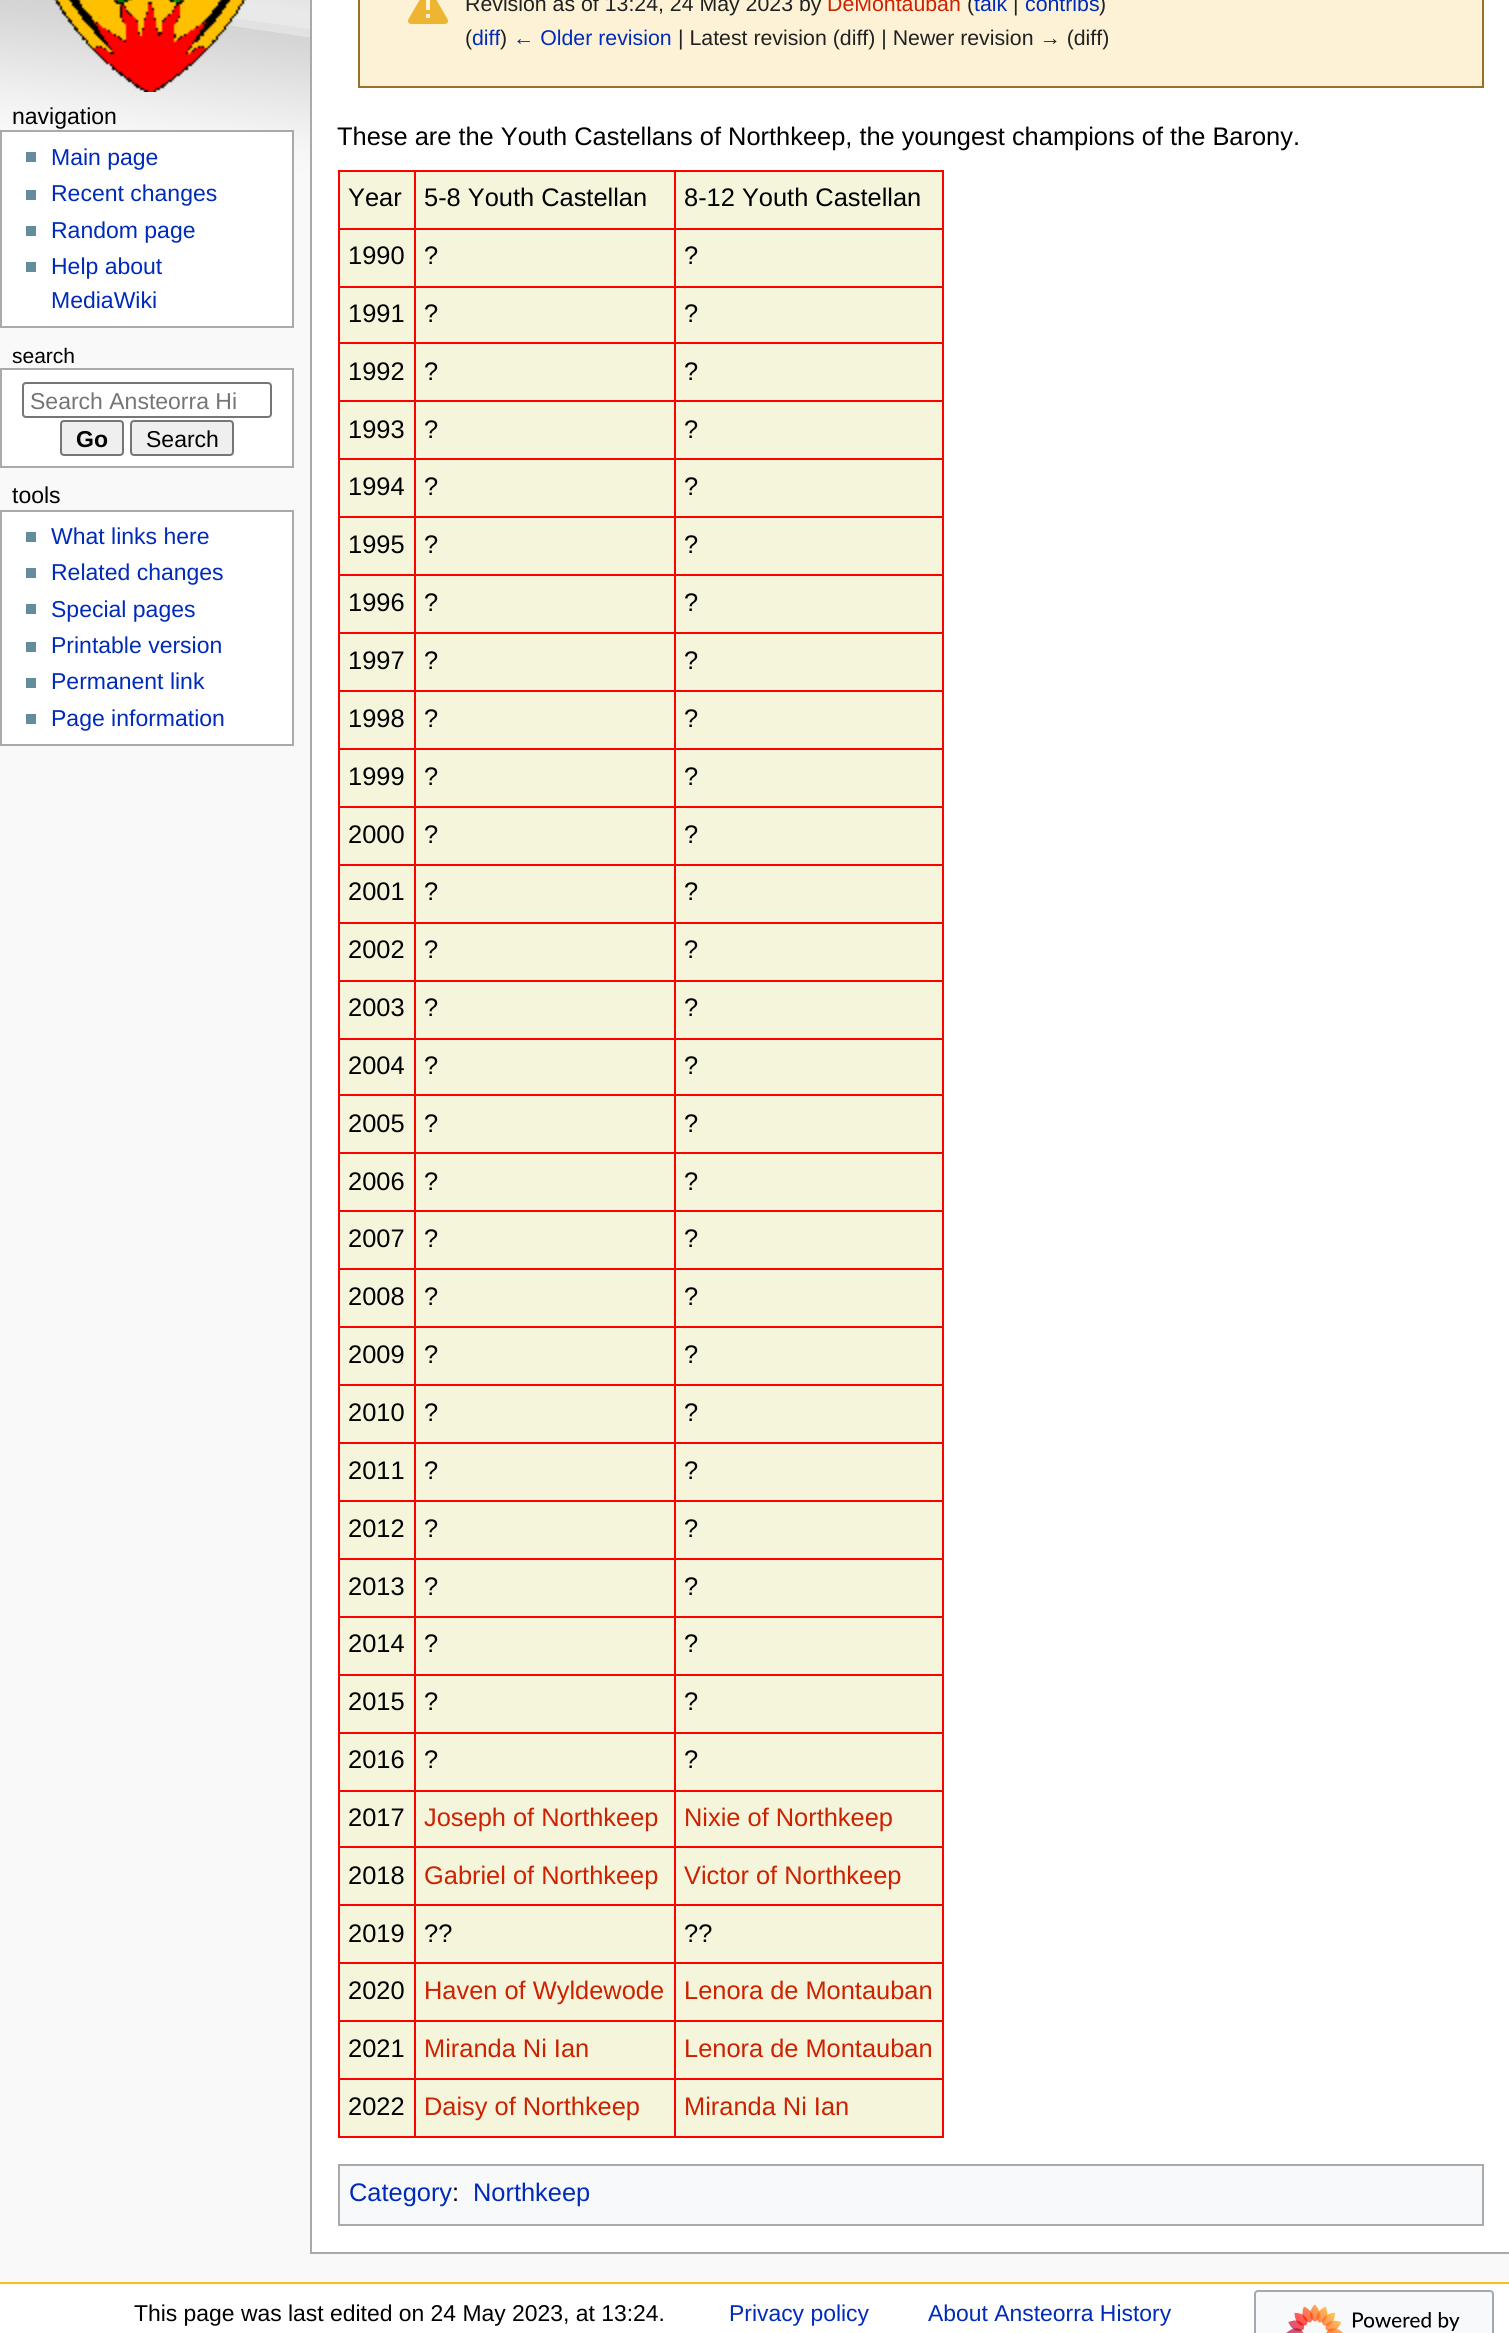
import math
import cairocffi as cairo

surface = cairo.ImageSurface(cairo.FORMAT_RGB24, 1509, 2333)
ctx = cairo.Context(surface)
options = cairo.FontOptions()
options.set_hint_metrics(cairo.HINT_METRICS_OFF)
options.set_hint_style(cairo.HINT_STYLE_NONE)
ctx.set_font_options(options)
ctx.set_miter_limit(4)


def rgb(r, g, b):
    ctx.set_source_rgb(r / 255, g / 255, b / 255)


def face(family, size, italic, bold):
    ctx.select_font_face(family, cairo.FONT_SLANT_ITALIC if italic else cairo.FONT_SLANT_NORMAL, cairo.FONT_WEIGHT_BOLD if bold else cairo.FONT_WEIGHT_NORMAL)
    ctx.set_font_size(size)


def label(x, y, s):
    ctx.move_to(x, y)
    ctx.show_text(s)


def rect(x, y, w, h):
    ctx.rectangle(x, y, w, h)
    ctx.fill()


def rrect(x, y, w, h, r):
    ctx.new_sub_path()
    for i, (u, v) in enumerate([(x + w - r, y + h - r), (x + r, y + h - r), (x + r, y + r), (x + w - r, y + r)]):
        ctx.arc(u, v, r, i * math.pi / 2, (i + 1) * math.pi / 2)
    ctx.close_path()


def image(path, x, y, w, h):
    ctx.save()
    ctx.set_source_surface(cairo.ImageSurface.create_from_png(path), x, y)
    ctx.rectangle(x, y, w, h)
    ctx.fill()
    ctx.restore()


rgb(249, 249, 249)
ctx.paint()
image('image0.png', 0, 0, 310, 201)
image('image1.png', 53, 0, 194, 92)
face('Liberation Sans', 23, 0, 0)
rgb(0, 0, 0)
label(12, 124, 'navigation')
rgb(255, 255, 255)
ctx.rectangle(1, 131, 292, 196)
ctx.fill_preserve()
rgb(170, 170, 170)
ctx.stroke()
rgb(99, 140, 156)
rect(26, 152, 10, 10)
rgb(0, 43, 184)
label(51, 165, 'Main page')
rgb(99, 140, 156)
rect(26, 190, 10, 10)
rgb(0, 43, 184)
label(51, 201, 'Recent changes')
rgb(99, 140, 156)
rect(26, 226, 10, 10)
rgb(0, 43, 184)
label(51, 238, 'Random page')
rgb(99, 140, 156)
rect(26, 262, 10, 10)
rgb(0, 43, 184)
label(51, 274, 'Help about')
label(51, 308, 'MediaWiki')
face('Liberation Sans', 21, 0, 0)
rgb(0, 0, 0)
label(12, 363, 'search')
rgb(255, 255, 255)
ctx.rectangle(1, 369, 292, 98)
ctx.fill_preserve()
rgb(170, 170, 170)
ctx.stroke()
rrect(23, 383, 248, 34, 3)
rgb(118, 118, 118)
ctx.stroke()
face('Liberation Sans', 23, 0, 0)
rgb(117, 117, 117)
label(30, 409, 'Search Ansteorra Hi')
rgb(239, 239, 239)
rrect(61, 421, 62, 34, 3)
ctx.fill_preserve()
rgb(118, 118, 118)
ctx.stroke()
face('Liberation Sans', 23, 0, 1)
rgb(0, 0, 0)
label(76, 447, 'Go')
rgb(239, 239, 239)
rrect(131, 421, 102, 34, 3)
ctx.fill_preserve()
rgb(118, 118, 118)
ctx.stroke()
face('Liberation Sans', 23, 0, 0)
rgb(0, 0, 0)
label(146, 447, 'Search')
label(12, 503, 'tools')
rgb(255, 255, 255)
ctx.rectangle(1, 511, 292, 234)
ctx.fill_preserve()
rgb(170, 170, 170)
ctx.stroke()
rgb(99, 140, 156)
rect(26, 532, 10, 10)
rgb(0, 43, 184)
label(51, 544, 'What links here')
rgb(99, 140, 156)
rect(26, 568, 10, 10)
rgb(0, 43, 184)
label(51, 580, 'Related changes')
rgb(99, 140, 156)
rect(26, 604, 10, 10)
rgb(0, 43, 184)
label(51, 617, 'Special pages')
rgb(99, 140, 156)
rect(26, 642, 10, 10)
rgb(0, 43, 184)
label(51, 653, 'Printable version')
rgb(99, 140, 156)
rect(26, 678, 10, 10)
rgb(0, 43, 184)
label(51, 689, 'Permanent link')
rgb(99, 140, 156)
rect(26, 714, 10, 10)
rgb(0, 43, 184)
label(51, 726, 'Page information')
rgb(255, 255, 255)
rect(312, 0, 1197, 2252)
rgb(170, 170, 170)
rect(310, 2252, 1199, 2)
rect(310, 0, 2, 2254)
rgb(253, 242, 213)
ctx.rectangle(359, -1, 1124, 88)
ctx.fill_preserve()
rgb(152, 112, 39)
ctx.stroke()
image('image2.png', 408, 0, 40, 24)
face('Liberation Sans', 21.3, 0, 0)
rgb(32, 33, 34)
label(465, 11, 'Revision as of 13:24, 24 May 2023 by')
rgb(204, 34, 0)
label(827, 11, 'DeMontauban')
rgb(32, 33, 34)
label(967, 11, '(')
rgb(0, 43, 184)
label(974, 11, 'talk')
rgb(32, 33, 34)
label(1013, 11, '|')
rgb(0, 43, 184)
label(1025, 11, 'contribs')
rgb(32, 33, 34)
label(1099, 11, ')')
label(465, 45, '(')
rgb(0, 43, 184)
label(472, 45, 'diff')
rgb(32, 33, 34)
label(500, 45, ')')
rgb(0, 43, 184)
label(513, 45, '← Older revision')
rgb(32, 33, 34)
label(678, 45, '| Latest revision (diff) | Newer revision → (diff)')
face('Liberation Sans', 25.4, 0, 0)
rgb(0, 0, 0)
label(337, 145, 'These are the Youth Castellans of Northkeep, the youngest champions of the Barony.')
rgb(245, 245, 220)
rect(340, 172, 602, 1964)
rgb(255, 0, 0)
rect(338, 170, 606, 2)
rect(942, 170, 2, 1968)
rect(338, 2136, 606, 2)
rect(338, 170, 2, 1968)
rgb(0, 0, 0)
label(348, 206, 'Year')
rgb(255, 0, 0)
rect(674, 228, 270, 2)
rect(674, 286, 270, 2)
rect(674, 342, 270, 2)
rect(674, 400, 270, 2)
rect(674, 458, 270, 2)
rect(674, 516, 270, 2)
rect(674, 574, 270, 2)
rect(674, 632, 270, 2)
rect(674, 690, 270, 2)
rect(674, 748, 270, 2)
rect(674, 806, 270, 2)
rect(674, 864, 270, 2)
rect(674, 922, 270, 2)
rect(674, 980, 270, 2)
rect(674, 1038, 270, 2)
rect(674, 1094, 270, 2)
rect(674, 1152, 270, 2)
rect(674, 1210, 270, 2)
rect(674, 1268, 270, 2)
rect(674, 1326, 270, 2)
rect(674, 1384, 270, 2)
rect(674, 1442, 270, 2)
rect(674, 1500, 270, 2)
rect(674, 1558, 270, 2)
rect(674, 1616, 270, 2)
rect(674, 1674, 270, 2)
rect(674, 1732, 270, 2)
rect(674, 1790, 270, 2)
rect(674, 1846, 270, 2)
rect(674, 1904, 270, 2)
rect(674, 1962, 270, 2)
rect(674, 2020, 270, 2)
rect(674, 2078, 270, 2)
rect(674, 2078, 2, 60)
rect(414, 2078, 262, 2)
rect(674, 2020, 2, 60)
rect(414, 2020, 262, 2)
rect(674, 1962, 2, 60)
rect(414, 1962, 262, 2)
rect(674, 1904, 2, 60)
rect(414, 1904, 262, 2)
rect(674, 1846, 2, 60)
rect(414, 1846, 262, 2)
rect(674, 1790, 2, 58)
rect(414, 1790, 262, 2)
rect(674, 1732, 2, 60)
rect(414, 1732, 262, 2)
rect(674, 1674, 2, 60)
rect(414, 1674, 262, 2)
rect(674, 1616, 2, 60)
rect(414, 1616, 262, 2)
rect(674, 1558, 2, 60)
rect(414, 1558, 262, 2)
rect(674, 1500, 2, 60)
rect(414, 1500, 262, 2)
rect(674, 1442, 2, 60)
rect(414, 1442, 262, 2)
rect(674, 1384, 2, 60)
rect(414, 1384, 262, 2)
rect(674, 1326, 2, 60)
rect(414, 1326, 262, 2)
rect(674, 1268, 2, 60)
rect(414, 1268, 262, 2)
rect(674, 1210, 2, 60)
rect(414, 1210, 262, 2)
rect(674, 1152, 2, 60)
rect(414, 1152, 262, 2)
rect(674, 1094, 2, 60)
rect(414, 1094, 262, 2)
rect(674, 1038, 2, 58)
rect(414, 1038, 262, 2)
rect(674, 980, 2, 60)
rect(414, 980, 262, 2)
rect(674, 922, 2, 60)
rect(414, 922, 262, 2)
rect(674, 864, 2, 60)
rect(414, 864, 262, 2)
rect(674, 806, 2, 60)
rect(414, 806, 262, 2)
rect(674, 748, 2, 60)
rect(414, 748, 262, 2)
rect(674, 690, 2, 60)
rect(414, 690, 262, 2)
rect(674, 632, 2, 60)
rect(414, 632, 262, 2)
rect(674, 574, 2, 60)
rect(414, 574, 262, 2)
rect(674, 516, 2, 60)
rect(414, 516, 262, 2)
rect(674, 458, 2, 60)
rect(414, 458, 262, 2)
rect(674, 400, 2, 60)
rect(414, 400, 262, 2)
rect(674, 342, 2, 60)
rect(414, 342, 262, 2)
rect(674, 286, 2, 58)
rect(414, 286, 262, 2)
rect(674, 228, 2, 60)
rect(414, 228, 262, 2)
rect(414, 2078, 2, 60)
rect(338, 2078, 78, 2)
rect(414, 2020, 2, 60)
rect(338, 2020, 78, 2)
rect(414, 1962, 2, 60)
rect(338, 1962, 78, 2)
rect(414, 1904, 2, 60)
rect(338, 1904, 78, 2)
rect(414, 1846, 2, 60)
rect(338, 1846, 78, 2)
rect(414, 1790, 2, 58)
rect(338, 1790, 78, 2)
rect(414, 1732, 2, 60)
rect(338, 1732, 78, 2)
rect(414, 1674, 2, 60)
rect(338, 1674, 78, 2)
rect(414, 1616, 2, 60)
rect(338, 1616, 78, 2)
rect(414, 1558, 2, 60)
rect(338, 1558, 78, 2)
rect(414, 1500, 2, 60)
rect(338, 1500, 78, 2)
rect(414, 1442, 2, 60)
rect(338, 1442, 78, 2)
rect(414, 1384, 2, 60)
rect(338, 1384, 78, 2)
rect(414, 1326, 2, 60)
rect(338, 1326, 78, 2)
rect(414, 1268, 2, 60)
rect(338, 1268, 78, 2)
rect(414, 1210, 2, 60)
rect(338, 1210, 78, 2)
rect(414, 1152, 2, 60)
rect(338, 1152, 78, 2)
rect(414, 1094, 2, 60)
rect(338, 1094, 78, 2)
rect(414, 1038, 2, 58)
rect(338, 1038, 78, 2)
rect(414, 980, 2, 60)
rect(338, 980, 78, 2)
rect(414, 922, 2, 60)
rect(338, 922, 78, 2)
rect(414, 864, 2, 60)
rect(338, 864, 78, 2)
rect(414, 806, 2, 60)
rect(338, 806, 78, 2)
rect(414, 748, 2, 60)
rect(338, 748, 78, 2)
rect(414, 690, 2, 60)
rect(338, 690, 78, 2)
rect(414, 632, 2, 60)
rect(338, 632, 78, 2)
rect(414, 574, 2, 60)
rect(338, 574, 78, 2)
rect(414, 516, 2, 60)
rect(338, 516, 78, 2)
rect(414, 458, 2, 60)
rect(338, 458, 78, 2)
rect(414, 400, 2, 60)
rect(338, 400, 78, 2)
rect(414, 342, 2, 60)
rect(338, 342, 78, 2)
rect(414, 286, 2, 58)
rect(338, 286, 78, 2)
rect(414, 228, 2, 60)
rect(338, 228, 78, 2)
rect(414, 170, 2, 60)
rgb(0, 0, 0)
label(424, 206, '5-8 Youth Castellan')
rgb(255, 0, 0)
rect(674, 170, 2, 60)
rgb(0, 0, 0)
label(684, 206, '8-12 Youth Castellan')
label(348, 264, '1990')
label(424, 264, '?')
label(684, 264, '?')
label(348, 322, '1991')
label(424, 322, '?')
label(684, 322, '?')
label(348, 380, '1992')
label(424, 380, '?')
label(684, 380, '?')
label(348, 438, '1993')
label(424, 438, '?')
label(684, 438, '?')
label(348, 495, '1994')
label(424, 495, '?')
label(684, 495, '?')
label(348, 553, '1995')
label(424, 553, '?')
label(684, 553, '?')
label(348, 611, '1996')
label(424, 611, '?')
label(684, 611, '?')
label(348, 669, '1997')
label(424, 669, '?')
label(684, 669, '?')
label(348, 727, '1998')
label(424, 727, '?')
label(684, 727, '?')
label(348, 785, '1999')
label(424, 785, '?')
label(684, 785, '?')
label(348, 843, '2000')
label(424, 843, '?')
label(684, 843, '?')
label(348, 900, '2001')
label(424, 900, '?')
label(684, 900, '?')
label(348, 958, '2002')
label(424, 958, '?')
label(684, 958, '?')
label(348, 1016, '2003')
label(424, 1016, '?')
label(684, 1016, '?')
label(348, 1074, '2004')
label(424, 1074, '?')
label(684, 1074, '?')
label(348, 1132, '2005')
label(424, 1132, '?')
label(684, 1132, '?')
label(348, 1190, '2006')
label(424, 1190, '?')
label(684, 1190, '?')
label(348, 1247, '2007')
label(424, 1247, '?')
label(684, 1247, '?')
label(348, 1305, '2008')
label(424, 1305, '?')
label(684, 1305, '?')
label(348, 1363, '2009')
label(424, 1363, '?')
label(684, 1363, '?')
label(348, 1421, '2010')
label(424, 1421, '?')
label(684, 1421, '?')
label(348, 1479, '2011')
label(424, 1479, '?')
label(684, 1479, '?')
label(348, 1537, '2012')
label(424, 1537, '?')
label(684, 1537, '?')
label(348, 1595, '2013')
label(424, 1595, '?')
label(684, 1595, '?')
label(348, 1652, '2014')
label(424, 1652, '?')
label(684, 1652, '?')
label(348, 1710, '2015')
label(424, 1710, '?')
label(684, 1710, '?')
label(348, 1768, '2016')
label(424, 1768, '?')
label(684, 1768, '?')
label(348, 1826, '2017')
rgb(204, 34, 0)
label(424, 1826, 'Joseph of Northkeep')
label(684, 1826, 'Nixie of Northkeep')
rgb(0, 0, 0)
label(348, 1884, '2018')
rgb(204, 34, 0)
label(424, 1884, 'Gabriel of Northkeep')
label(684, 1884, 'Victor of Northkeep')
rgb(0, 0, 0)
label(348, 1942, '2019')
label(424, 1942, '??')
label(684, 1942, '??')
label(348, 1999, '2020')
rgb(204, 34, 0)
label(424, 1999, 'Haven of Wyldewode')
label(684, 1999, 'Lenora de Montauban')
rgb(0, 0, 0)
label(348, 2057, '2021')
rgb(204, 34, 0)
label(424, 2057, 'Miranda Ni Ian')
label(684, 2057, 'Lenora de Montauban')
rgb(0, 0, 0)
label(348, 2115, '2022')
rgb(204, 34, 0)
label(424, 2115, 'Daisy of Northkeep')
label(684, 2115, 'Miranda Ni Ian')
rgb(248, 249, 250)
ctx.rectangle(339, 2165, 1144, 60)
ctx.fill_preserve()
rgb(170, 170, 170)
ctx.stroke()
rgb(0, 43, 184)
label(349, 2201, 'Category')
rgb(0, 0, 0)
label(452, 2201, ':')
rgb(0, 43, 184)
label(473, 2201, 'Northkeep')
rgb(255, 255, 255)
rect(0, 2284, 1509, 49)
rgb(250, 189, 35)
rect(0, 2282, 1509, 2)
face('Liberation Sans', 22.9, 0, 0)
rgb(0, 0, 0)
label(134, 2321, 'This page was last edited on 24 May 2023, at 13:24.')
rgb(0, 43, 184)
label(729, 2321, 'Privacy policy')
label(928, 2321, 'About Ansteorra History')
rgb(248, 249, 250)
rrect(1255, 2291, 238, 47, 3)
ctx.fill_preserve()
rgb(162, 169, 177)
ctx.stroke()
image('image3.png', 1286, 2304, 174, 29)
surface.write_to_png('render.png')
